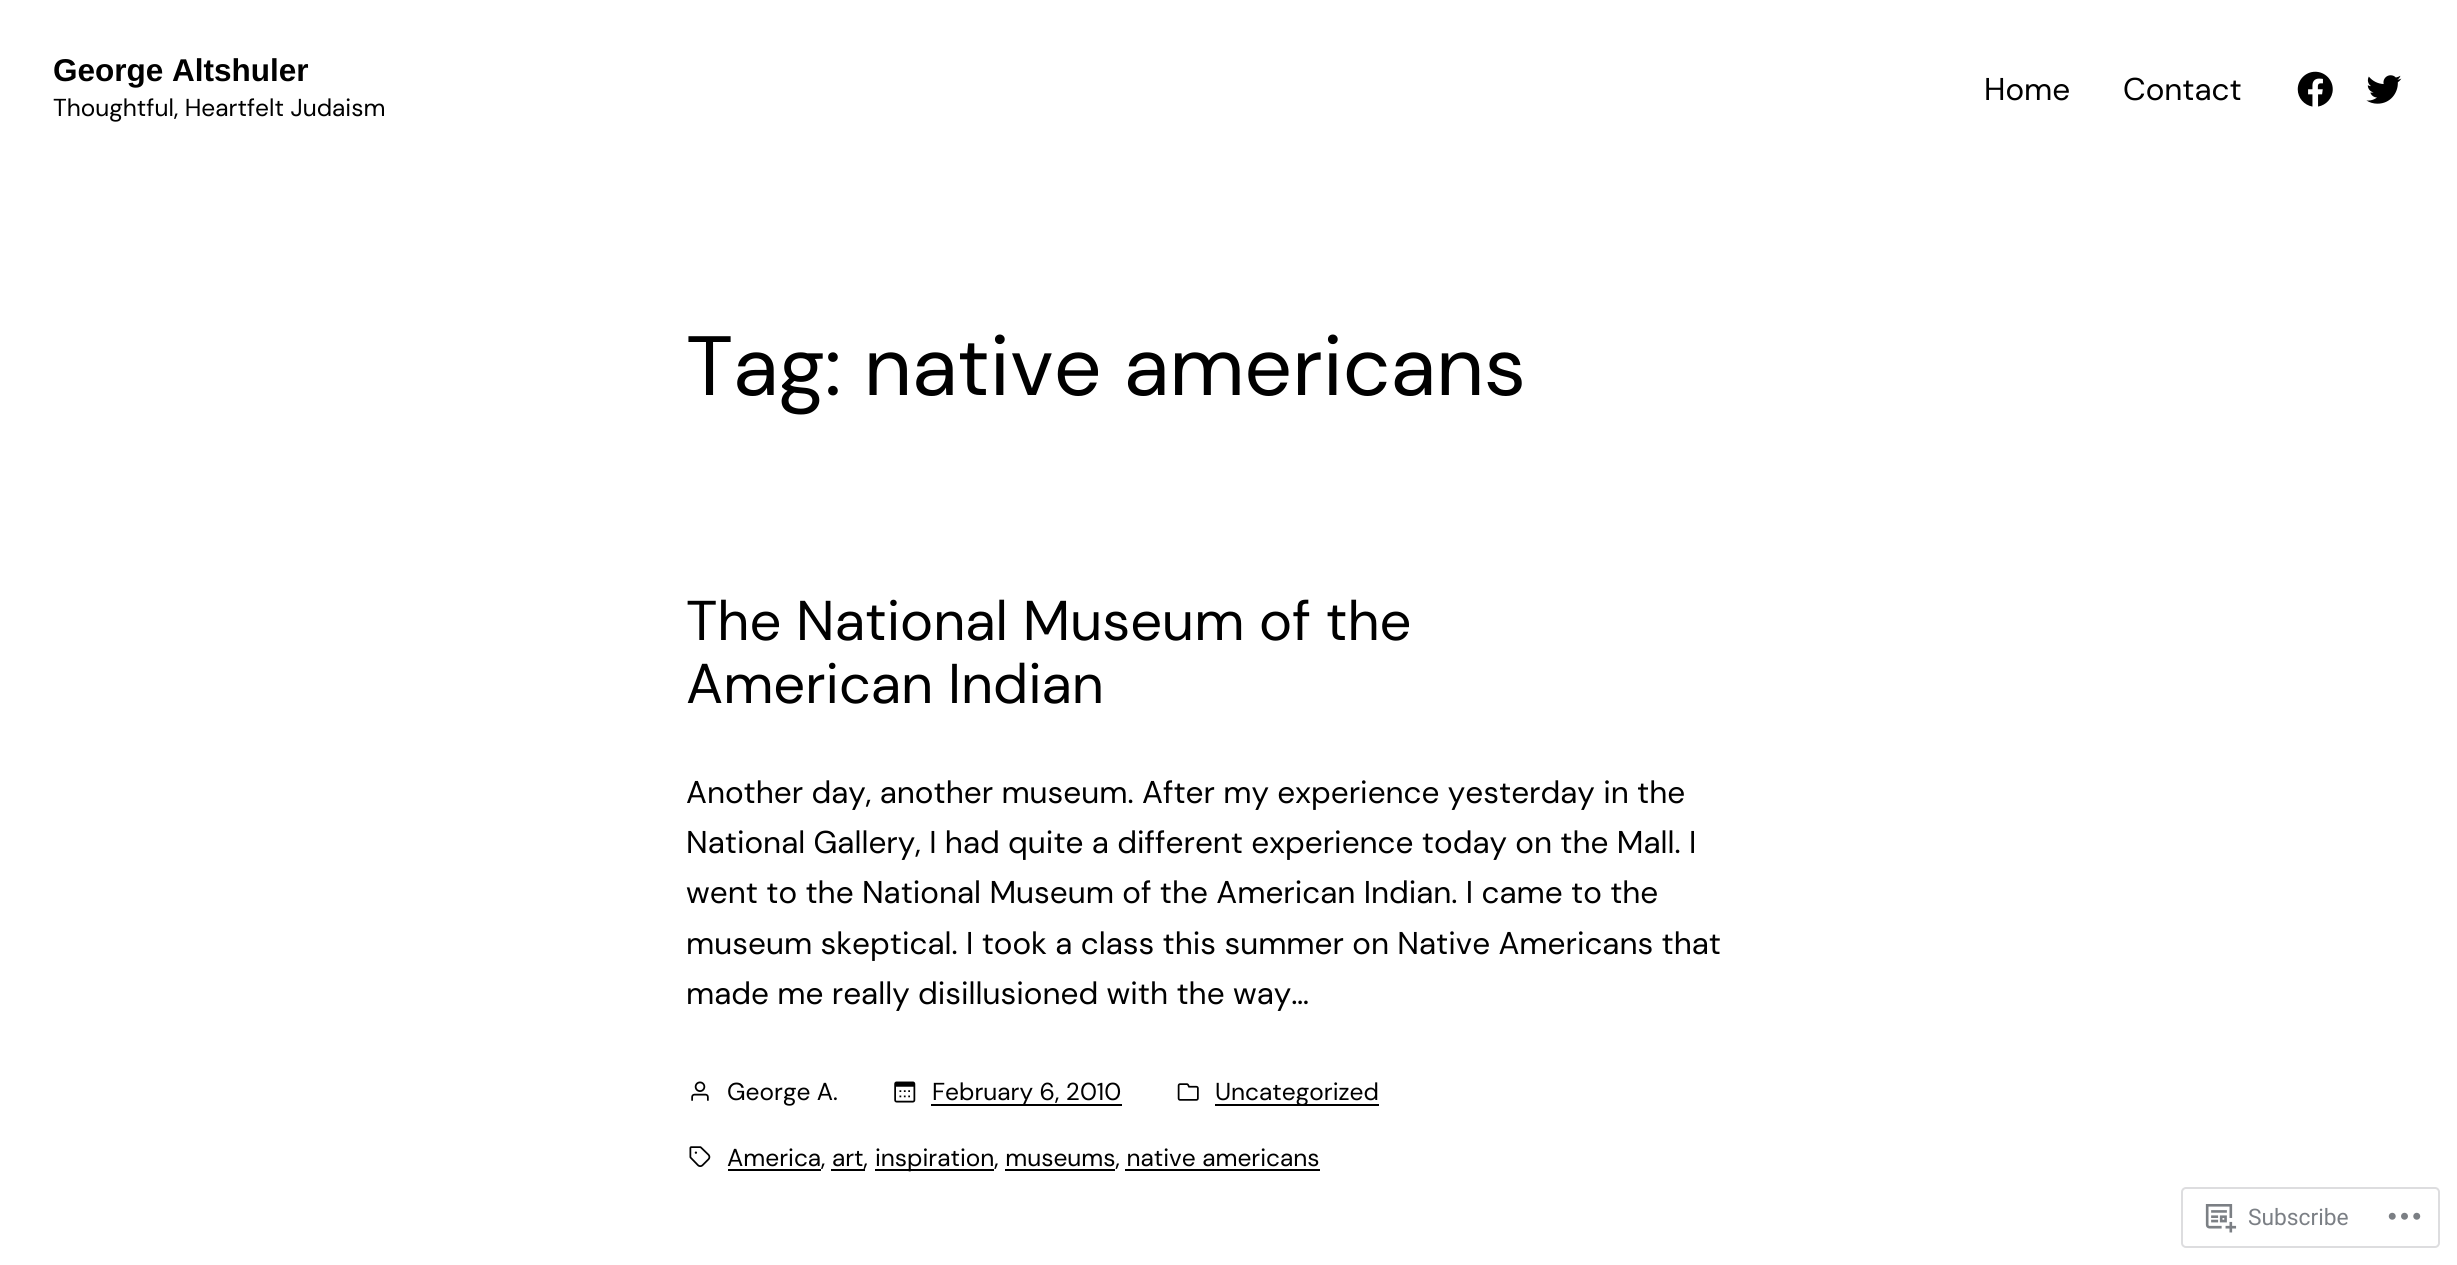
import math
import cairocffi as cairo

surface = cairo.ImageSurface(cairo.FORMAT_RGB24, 2457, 1265)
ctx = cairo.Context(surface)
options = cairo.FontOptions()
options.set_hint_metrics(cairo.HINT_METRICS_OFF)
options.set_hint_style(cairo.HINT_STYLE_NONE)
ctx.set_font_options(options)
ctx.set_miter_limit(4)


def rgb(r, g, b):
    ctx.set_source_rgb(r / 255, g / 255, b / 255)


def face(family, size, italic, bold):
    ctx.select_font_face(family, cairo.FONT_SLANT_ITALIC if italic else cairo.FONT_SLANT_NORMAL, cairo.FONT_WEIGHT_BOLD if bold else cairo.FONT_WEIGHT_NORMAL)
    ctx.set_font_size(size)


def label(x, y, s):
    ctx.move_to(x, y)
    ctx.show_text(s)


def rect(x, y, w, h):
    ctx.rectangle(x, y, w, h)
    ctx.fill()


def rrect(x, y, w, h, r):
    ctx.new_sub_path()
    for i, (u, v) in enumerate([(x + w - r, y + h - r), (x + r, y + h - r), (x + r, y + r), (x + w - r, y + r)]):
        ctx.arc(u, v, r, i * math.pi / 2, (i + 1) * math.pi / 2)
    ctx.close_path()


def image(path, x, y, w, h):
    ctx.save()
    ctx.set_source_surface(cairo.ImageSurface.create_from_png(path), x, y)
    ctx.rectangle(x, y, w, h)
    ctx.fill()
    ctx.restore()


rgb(255, 255, 255)
ctx.paint()
face('Liberation Sans', 31.5, 0, 1)
rgb(0, 0, 0)
label(53, 81, 'George Altshuler')
face('DM Sans', 24.5, 0, 0)
label(53, 116, 'Thoughtful, Heartfelt Judaism')
face('DM Sans', 31.5, 0, 0)
label(1984, 100, 'Home')
label(2123, 100, 'Contact')
image('image0.png', 2297, 71, 36, 36)
image('image1.png', 2366, 75, 36, 29)
face('DM Sans', 84, 0, 0)
label(686, 395, 'Tag: native americans')
face('DM Sans', 56, 0, 0)
label(686, 640, 'The National Museum of the')
label(686, 703, 'American Indian')
face('DM Sans', 31.5, 0, 0)
label(686, 803, 'Another day, another museum. After my experience yesterday in the')
label(686, 853, 'National Gallery, I had quite a different experience today on the Mall. I')
label(686, 903, 'went to the National Museum of the American Indian. I came to the')
label(686, 954, 'museum skeptical. I took a class this summer on Native Americans that')
label(686, 1004, 'made me really disillusioned with the way…')
image('image2.png', 691, 1081, 18, 20)
face('DM Sans', 24.5, 0, 0)
label(727, 1100, 'George A.')
image('image3.png', 894, 1081, 22, 22)
rect(931, 1104, 191, 2)
label(932, 1100, 'February 6, 2010')
image('image4.png', 1177, 1083, 22, 18)
rect(1215, 1104, 164, 2)
label(1215, 1100, 'Uncategorized')
image('image5.png', 689, 1146, 22, 21)
label(727, 1166, 'America, art,')
rect(728, 1169, 93, 2)
rect(875, 1169, 119, 2)
label(875, 1166, 'inspiration, museums, native americans')
rect(831, 1169, 34, 2)
rect(1005, 1169, 110, 2)
rect(1125, 1169, 195, 2)
rrect(2182, 1188, 257, 59, 4)
rgb(221, 221, 223)
ctx.stroke()
image('image6.png', 2205, 1204, 32, 29)
face('Roboto', 22.75, 0, 0)
rgb(123, 127, 133)
label(2248, 1225, 'Subscribe')
image('image7.png', 2388, 1212, 33, 8)
surface.write_to_png('render.png')
